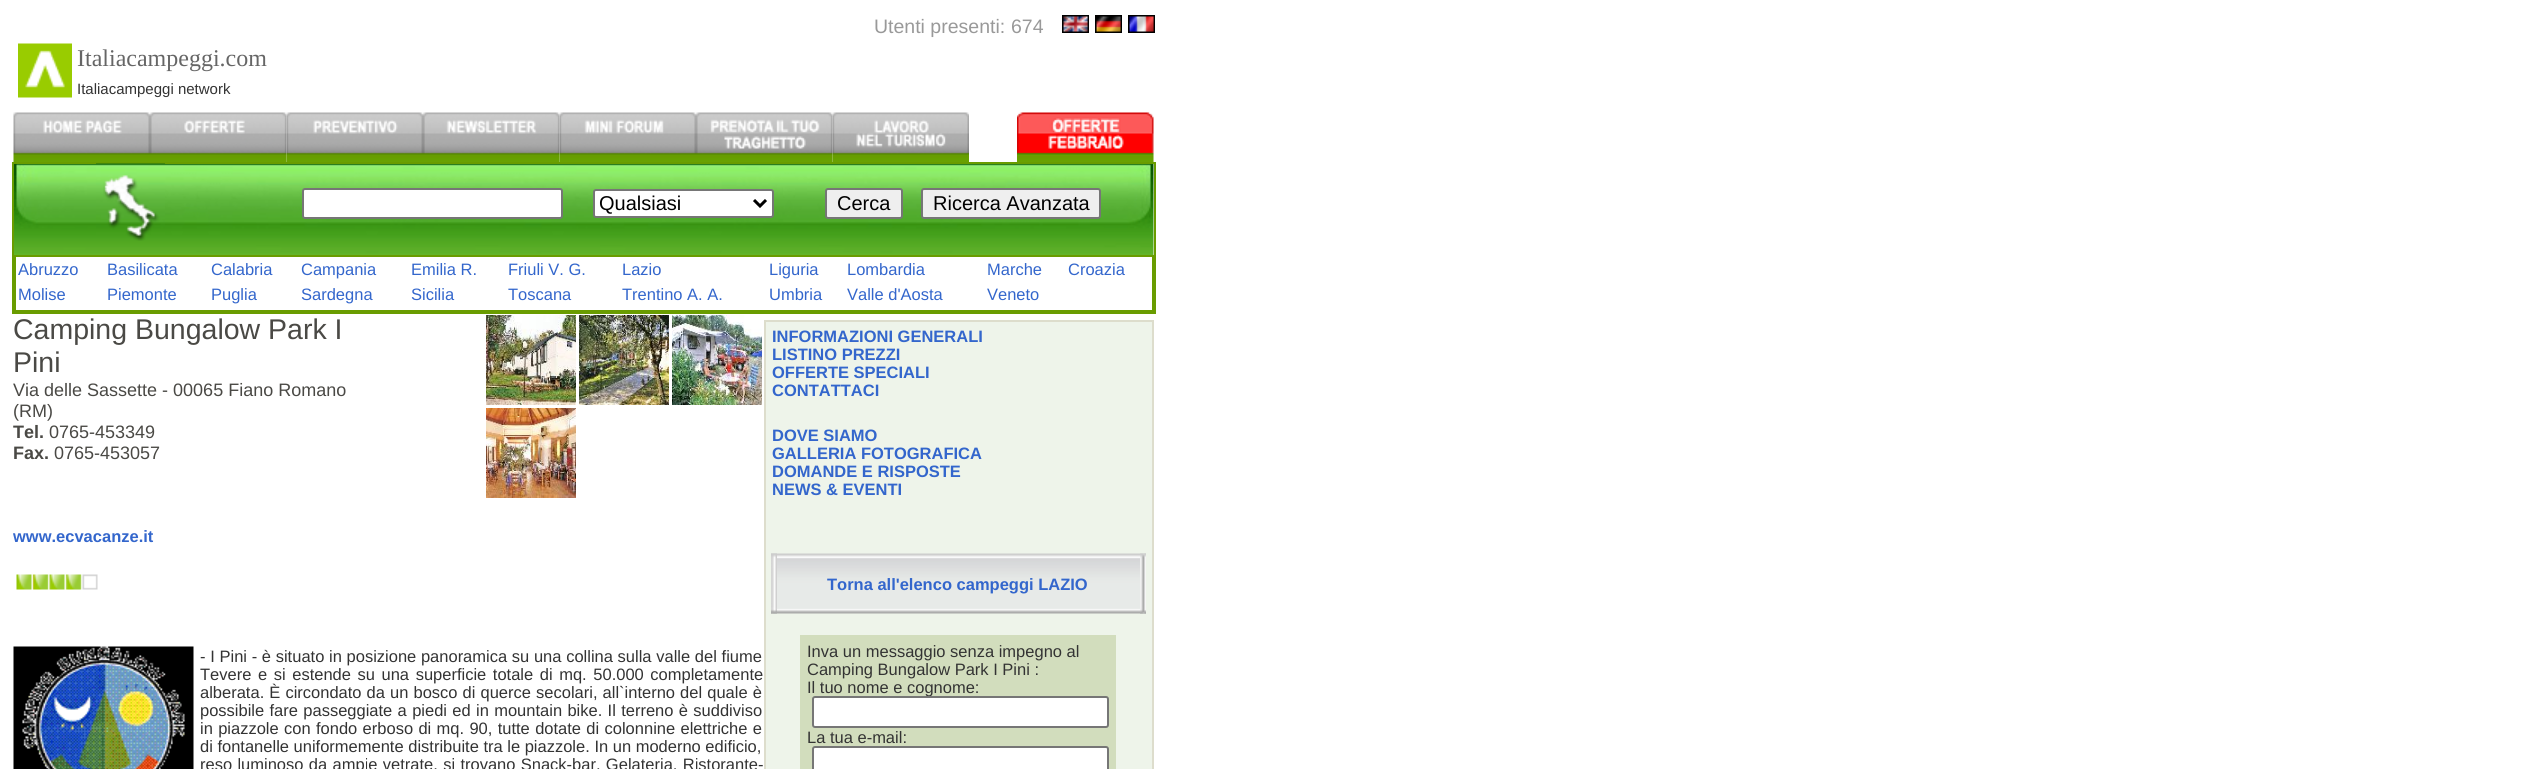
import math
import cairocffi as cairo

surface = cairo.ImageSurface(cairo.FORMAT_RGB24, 2523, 769)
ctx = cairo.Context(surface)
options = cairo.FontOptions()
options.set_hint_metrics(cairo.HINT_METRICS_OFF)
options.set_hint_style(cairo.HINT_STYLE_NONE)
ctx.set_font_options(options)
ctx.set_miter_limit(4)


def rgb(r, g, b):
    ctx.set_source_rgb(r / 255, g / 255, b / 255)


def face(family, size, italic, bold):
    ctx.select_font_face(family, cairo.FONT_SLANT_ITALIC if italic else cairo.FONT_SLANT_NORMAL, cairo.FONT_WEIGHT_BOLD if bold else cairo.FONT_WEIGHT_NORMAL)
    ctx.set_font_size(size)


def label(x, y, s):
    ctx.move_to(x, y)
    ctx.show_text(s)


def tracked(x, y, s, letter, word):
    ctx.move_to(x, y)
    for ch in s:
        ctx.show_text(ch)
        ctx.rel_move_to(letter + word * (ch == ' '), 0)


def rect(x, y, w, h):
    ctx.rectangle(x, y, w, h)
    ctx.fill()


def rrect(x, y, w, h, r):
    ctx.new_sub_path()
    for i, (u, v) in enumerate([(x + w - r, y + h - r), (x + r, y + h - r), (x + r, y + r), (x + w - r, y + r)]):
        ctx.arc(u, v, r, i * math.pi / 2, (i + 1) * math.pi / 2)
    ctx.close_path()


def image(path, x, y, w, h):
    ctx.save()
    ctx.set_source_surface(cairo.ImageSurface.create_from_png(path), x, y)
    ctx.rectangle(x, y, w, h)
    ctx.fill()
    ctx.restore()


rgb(255, 255, 255)
ctx.paint()
face('Liberation Sans', 19.5, 0, 0)
rgb(153, 153, 153)
label(874, 33, 'Utenti presenti:')
label(1011, 33, '674')
image('image0.png', 1062, 15, 27, 18)
image('image1.png', 1095, 15, 27, 18)
image('image2.png', 1128, 15, 27, 18)
image('image3.png', 18, 43, 54, 55)
face('Liberation Serif', 24, 0, 0)
rgb(102, 102, 102)
label(77, 66, 'Italiacampeggi.com')
face('Liberation Sans', 15, 0, 0)
rgb(51, 51, 51)
label(77, 94, 'Italiacampeggi network')
image('image4.png', 13, 112, 137, 50)
image('image5.png', 150, 112, 137, 50)
image('image6.png', 286, 112, 137, 50)
image('image7.png', 423, 112, 137, 50)
image('image8.png', 559, 112, 137, 50)
image('image9.png', 696, 112, 137, 50)
image('image10.png', 832, 112, 137, 50)
image('image11.png', 1017, 112, 137, 50)
rgb(105, 156, 0)
rect(12, 162, 1143, 2)
rect(1154, 162, 2, 152)
rect(12, 312, 1143, 2)
rect(12, 162, 2, 152)
image('image12.png', 14, 164, 1140, 91)
image('image13.png', 96, 163, 69, 78)
rgb(255, 255, 255)
rrect(303, 189, 259, 29, 2)
ctx.fill_preserve()
rgb(118, 118, 118)
ctx.stroke()
rgb(255, 255, 255)
rrect(594, 190, 179, 27, 2)
ctx.fill_preserve()
rgb(118, 118, 118)
ctx.stroke()
ctx.new_path()
ctx.move_to(754, 200)
ctx.line_to(760, 206)
ctx.line_to(766, 200)
rgb(0, 0, 0)
ctx.set_line_width(3)
ctx.stroke()
face('Liberation Sans', 20, 0, 0)
label(599, 210, 'Qualsiasi')
rgb(239, 239, 239)
rrect(826, 189, 76, 29, 2)
ctx.fill_preserve()
rgb(118, 118, 118)
ctx.set_line_width(2)
ctx.stroke()
rgb(0, 0, 0)
label(837, 210, 'Cerca')
rgb(239, 239, 239)
rrect(922, 189, 178, 29, 2)
ctx.fill_preserve()
rgb(118, 118, 118)
ctx.stroke()
rgb(0, 0, 0)
label(933, 210, 'Ricerca Avanzata')
ctx.rectangle(15, 256, 1138, 55)
rgb(105, 156, 0)
ctx.stroke()
face('Liberation Sans', 16.5, 0, 0)
rgb(51, 102, 204)
label(18, 275, 'Abruzzo')
label(107, 275, 'Basilicata')
label(211, 275, 'Calabria')
label(301, 275, 'Campania')
label(411, 275, 'Emilia R.')
label(508, 275, 'Friuli V. G.')
label(622, 275, 'Lazio')
label(769, 275, 'Liguria')
label(847, 275, 'Lombardia')
label(987, 275, 'Marche')
label(1068, 275, 'Croazia')
label(18, 300, 'Molise')
label(107, 300, 'Piemonte')
label(211, 300, 'Puglia')
label(301, 300, 'Sardegna')
label(411, 300, 'Sicilia')
label(508, 300, 'Toscana')
label(622, 300, 'Trentino A. A.')
label(769, 300, 'Umbria')
label(847, 300, 'Valle d\'Aosta')
label(987, 300, 'Veneto')
face('Liberation Sans', 28.5, 0, 0)
rgb(74, 73, 69)
label(13, 339, 'Camping Bungalow Park I')
label(13, 372, 'Pini')
face('Liberation Sans', 18, 0, 0)
label(13, 396, 'Via delle Sassette - 00065 Fiano Romano')
label(13, 417, '(RM)')
face('Liberation Sans', 18, 0, 1)
label(13, 438, 'Tel.')
face('Liberation Sans', 18, 0, 0)
label(49, 438, '0765-453349')
face('Liberation Sans', 18, 0, 1)
label(13, 459, 'Fax.')
face('Liberation Sans', 18, 0, 0)
label(54, 459, '0765-453057')
face('Liberation Sans', 16.5, 0, 1)
rgb(51, 102, 204)
label(13, 542, 'www.ecvacanze.it')
image('image14.png', 16, 574, 82, 16)
image('image15.png', 486, 315, 90, 90)
image('image16.png', 579, 315, 90, 90)
image('image17.png', 672, 315, 90, 90)
image('image18.png', 486, 408, 90, 90)
image('image19.png', 13, 646, 181, 123)
face('Liberation Sans', 16.5, 0, 0)
rgb(51, 51, 51)
tracked(200, 662, '- I Pini - è situato in posizione panoramica su una collina sulla valle del fiume', 0, 0.1)
tracked(200, 680, 'Tevere e si estende su una superficie totale di mq. 50.000 completamente', 0, 2)
tracked(200, 698, 'alberata. È circondato da un bosco di querce secolari, all`interno del quale è', 0, 0.5)
tracked(200, 716, 'possibile fare passeggiate a piedi ed in mountain bike. Il terreno è suddiviso', 0, 0.75)
tracked(200, 734, 'in piazzole con fondo erboso di mq. 90, tutte dotate di colonnine elettriche e', 0, 0.75)
label(200, 752, 'di fontanelle uniformemente distribuite tra le piazzole. In un moderno edificio,')
tracked(200, 770, 'reso luminoso da ampie vetrate, si trovano Snack-bar, Gelateria, Ristorante-', 0, 0.75)
rgb(238, 244, 234)
ctx.rectangle(765, 321, 388, 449)
ctx.fill_preserve()
rgb(221, 221, 204)
ctx.stroke()
face('Liberation Sans', 16.5, 0, 1)
rgb(51, 102, 204)
label(772, 342, 'INFORMAZIONI GENERALI')
label(772, 360, 'LISTINO PREZZI')
label(772, 378, 'OFFERTE SPECIALI')
label(772, 396, 'CONTATTACI')
label(772, 441, 'DOVE SIAMO')
label(772, 459, 'GALLERIA FOTOGRAFICA')
label(772, 477, 'DOMANDE E RISPOSTE')
label(772, 495, 'NEWS & EVENTI')
image('image20.png', 771, 553, 375, 61)
image('image21.png', 771, 553, 6, 61)
label(827, 590, 'Torna all\'elenco campeggi LAZIO')
image('image22.png', 1140, 553, 6, 61)
rgb(210, 221, 189)
rect(800, 635, 316, 134)
face('Liberation Sans', 16.5, 0, 0)
rgb(51, 51, 51)
label(807, 657, 'Inva un messaggio senza impegno al')
label(807, 675, 'Camping Bungalow Park I Pini :')
label(807, 693, 'Il tuo nome e cognome:')
rgb(255, 255, 255)
rrect(813, 697, 295, 30, 2)
ctx.fill_preserve()
rgb(118, 118, 118)
ctx.stroke()
rgb(51, 51, 51)
label(807, 743, 'La tua e-mail:')
rgb(255, 255, 255)
rrect(813, 747, 295, 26, 2)
ctx.fill_preserve()
rgb(118, 118, 118)
ctx.stroke()
surface.write_to_png('render.png')
